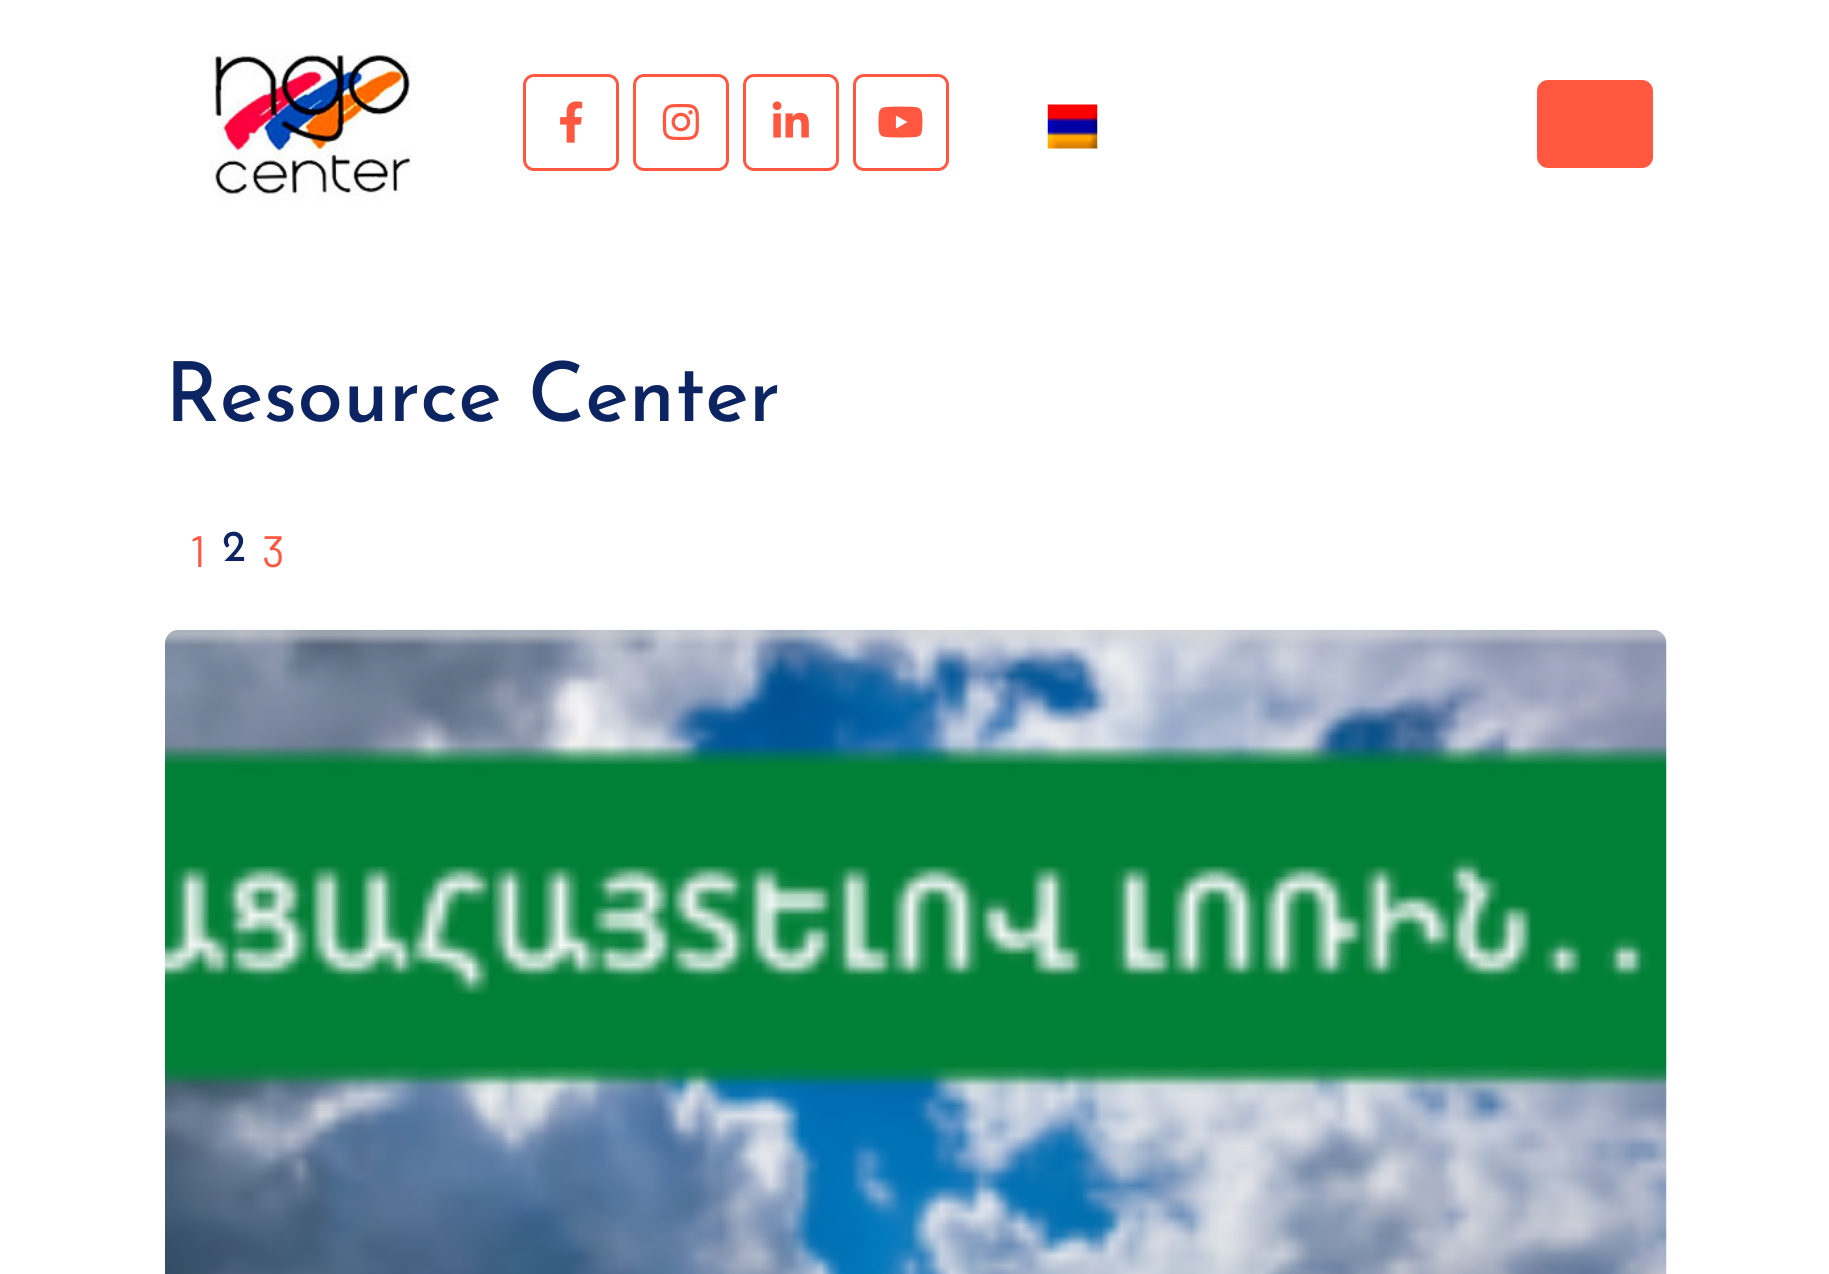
import math
import cairocffi as cairo

surface = cairo.ImageSurface(cairo.FORMAT_RGB24, 1829, 1274)
ctx = cairo.Context(surface)
options = cairo.FontOptions()
options.set_hint_metrics(cairo.HINT_METRICS_OFF)
options.set_hint_style(cairo.HINT_STYLE_NONE)
ctx.set_font_options(options)
ctx.set_miter_limit(4)


def rgb(r, g, b):
    ctx.set_source_rgb(r / 255, g / 255, b / 255)


def face(family, size, italic, bold):
    ctx.select_font_face(family, cairo.FONT_SLANT_ITALIC if italic else cairo.FONT_SLANT_NORMAL, cairo.FONT_WEIGHT_BOLD if bold else cairo.FONT_WEIGHT_NORMAL)
    ctx.set_font_size(size)


def label(x, y, s):
    ctx.move_to(x, y)
    ctx.show_text(s)


def rrect(x, y, w, h, r):
    ctx.new_sub_path()
    for i, (u, v) in enumerate([(x + w - r, y + h - r), (x + r, y + h - r), (x + r, y + r), (x + w - r, y + r)]):
        ctx.arc(u, v, r, i * math.pi / 2, (i + 1) * math.pi / 2)
    ctx.close_path()


def image(path, x, y, w, h):
    ctx.save()
    ctx.set_source_surface(cairo.ImageSurface.create_from_png(path), x, y)
    ctx.rectangle(x, y, w, h)
    ctx.fill()
    ctx.restore()


rgb(255, 255, 255)
ctx.paint()
image('image0.png', 210, 54, 201, 147)
rrect(524.5, 75.5, 93, 94, 9.5)
rgb(255, 87, 64)
ctx.set_line_width(3)
ctx.stroke()
image('image1.png', 560, 101, 23, 42)
rrect(634.5, 75.5, 93, 94, 9.5)
ctx.stroke()
image('image2.png', 662, 104, 37, 37)
rrect(744.5, 75.5, 93, 94, 9.5)
ctx.stroke()
image('image3.png', 772, 101, 37, 37)
rrect(854.5, 75.5, 93, 94, 9.5)
ctx.stroke()
image('image4.png', 878, 106, 45, 32)
image('image5.png', 1047, 104, 51, 45)
rrect(1537, 80, 116, 88, 11)
ctx.fill()
face('Josefin Sans Medium', 82.5, 0, 0)
rgb(12, 36, 97)
label(165, 421, 'Resource Center')
face('Barlow', 44, 0, 0)
rgb(255, 87, 64)
label(190, 567, '1')
face('Josefin Sans', 44, 0, 0)
rgb(12, 36, 97)
label(222, 561, '2')
face('Barlow', 44, 0, 0)
rgb(255, 87, 64)
label(262, 567, '3')
image('image6.png', 165, 629, 1502, 645)
surface.write_to_png('render.png')
